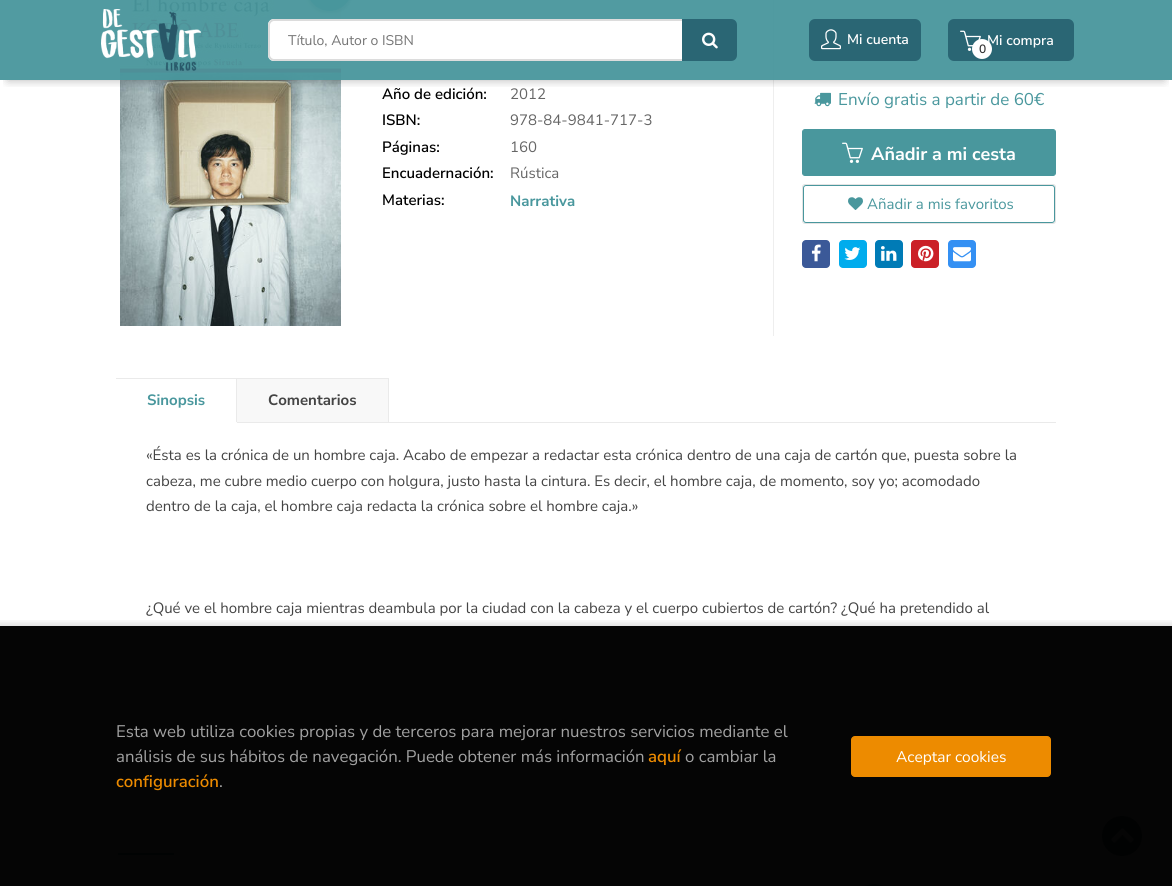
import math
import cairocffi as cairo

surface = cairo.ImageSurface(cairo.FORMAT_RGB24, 1172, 886)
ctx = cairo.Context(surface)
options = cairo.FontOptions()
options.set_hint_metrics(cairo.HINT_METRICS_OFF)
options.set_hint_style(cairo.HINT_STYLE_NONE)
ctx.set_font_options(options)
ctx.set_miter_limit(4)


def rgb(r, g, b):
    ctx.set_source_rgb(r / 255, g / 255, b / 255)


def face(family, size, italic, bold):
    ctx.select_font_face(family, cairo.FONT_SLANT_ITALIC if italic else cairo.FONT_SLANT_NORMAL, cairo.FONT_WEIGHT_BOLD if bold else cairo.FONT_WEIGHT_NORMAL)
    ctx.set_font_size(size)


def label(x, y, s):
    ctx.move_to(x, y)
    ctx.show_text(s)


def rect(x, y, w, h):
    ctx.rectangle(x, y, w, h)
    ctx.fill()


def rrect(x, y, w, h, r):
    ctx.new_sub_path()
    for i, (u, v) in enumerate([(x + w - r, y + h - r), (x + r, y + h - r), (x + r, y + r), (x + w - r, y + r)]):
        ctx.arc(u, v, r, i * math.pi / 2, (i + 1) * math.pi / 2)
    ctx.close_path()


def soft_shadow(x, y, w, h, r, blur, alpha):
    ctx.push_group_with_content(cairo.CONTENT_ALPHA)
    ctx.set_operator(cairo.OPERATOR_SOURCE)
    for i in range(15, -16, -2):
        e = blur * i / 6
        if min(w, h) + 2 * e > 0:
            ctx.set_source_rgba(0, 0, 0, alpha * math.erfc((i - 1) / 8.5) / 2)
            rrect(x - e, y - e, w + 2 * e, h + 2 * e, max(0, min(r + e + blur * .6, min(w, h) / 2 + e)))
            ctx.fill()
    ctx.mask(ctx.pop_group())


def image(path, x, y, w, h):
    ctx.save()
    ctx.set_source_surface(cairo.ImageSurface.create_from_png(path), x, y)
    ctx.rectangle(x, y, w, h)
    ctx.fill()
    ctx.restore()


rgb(255, 255, 255)
ctx.paint()
rgb(5, 5, 5)
rect(0, 626, 1172, 260)
rgb(238, 238, 238)
rect(773, 0, 1, 336)
image('image4.png', 120, 0, 221, 326)
rgb(0, 0, 0)
soft_shadow(307, -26, 45, 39, 22.5, 1, 0.25)
rgb(73, 151, 157)
rrect(307, -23, 45, 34, 22.5)
ctx.fill()
image('image5.png', 814, 92, 17, 15)
ctx.save()
ctx.rectangle(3, 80, 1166, 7)
ctx.clip()
rgb(0, 0, 0)
soft_shadow(8, 16, 1156, 64, 0, 5, 0.3)
ctx.restore()
ctx.set_source_rgba(0.286, 0.592, 0.616, 0.95)
rect(0, 0, 1172, 80)
image('image0.png', 101, 9, 100, 62)
rgb(255, 255, 255)
ctx.new_path()
ctx.move_to(274, 19)
ctx.line_to(682, 19)
ctx.line_to(682, 61)
ctx.line_to(274, 61)
ctx.curve_to(270.5, 61, 268, 58.5, 268, 55)
ctx.line_to(268, 25)
ctx.curve_to(268, 21.5, 270.5, 19, 274, 19)
ctx.close_path()
ctx.fill()
rgb(220, 220, 220)
ctx.set_fill_rule(cairo.FILL_RULE_EVEN_ODD)
ctx.new_path()
ctx.move_to(274, 19)
ctx.line_to(682, 19)
ctx.line_to(682, 61)
ctx.line_to(274, 61)
ctx.curve_to(271, 61, 268, 58, 268, 55)
ctx.line_to(268, 25)
ctx.curve_to(268, 22, 271, 19, 274, 19)
ctx.close_path()
ctx.move_to(274, 21)
ctx.line_to(682, 21)
ctx.line_to(682, 59)
ctx.line_to(274, 59)
ctx.curve_to(272, 59, 270, 57, 270, 55)
ctx.line_to(270, 25)
ctx.curve_to(270, 23, 272, 21, 274, 21)
ctx.close_path()
ctx.fill()
face('Nunito Sans', 14, 0, 0)
rgb(117, 117, 117)
label(288, 45, 'Título, Autor o ISBN')
rgb(42, 102, 116)
ctx.new_path()
ctx.move_to(682, 19)
ctx.line_to(731, 19)
ctx.curve_to(734.5, 19, 737, 21.5, 737, 25)
ctx.line_to(737, 55)
ctx.curve_to(737, 58.5, 734.5, 61, 731, 61)
ctx.line_to(682, 61)
ctx.close_path()
ctx.fill()
image('image1.png', 702, 32, 16, 17)
rrect(809, 19, 112, 42, 6)
ctx.fill()
image('image2.png', 821, 29, 20, 21)
face('Nunito Sans SemiBold', 14, 0, 0)
rgb(255, 255, 255)
label(847, 44, 'Mi cuenta')
rgb(42, 102, 116)
rrect(948, 19, 126, 42, 6)
ctx.fill()
image('image3.png', 960, 30, 21, 21)
rgb(255, 255, 255)
label(987, 45, 'Mi compra')
ctx.new_path()
ctx.arc(982, 49, 10, 0, 2 * math.pi)
ctx.fill()
face('Nunito Sans SemiBold', 12, 0, 0)
rgb(51, 51, 51)
label(979, 53, '0')
face('Nunito Sans SemiBold', 15, 0, 0)
rgb(0, 0, 0)
label(382, 99, 'Año de edición:')
face('Nunito Sans', 15, 0, 0)
rgb(102, 102, 102)
label(510, 99, '2012')
face('Nunito Sans SemiBold', 15, 0, 0)
rgb(0, 0, 0)
label(382, 125, 'ISBN:')
face('Nunito Sans', 15, 0, 0)
rgb(102, 102, 102)
label(510, 125, '978-84-9841-717-3')
face('Nunito Sans SemiBold', 15, 0, 0)
rgb(0, 0, 0)
label(382, 152, 'Páginas:')
face('Nunito Sans', 15, 0, 0)
rgb(102, 102, 102)
label(510, 152, '160')
face('Nunito Sans SemiBold', 15, 0, 0)
rgb(0, 0, 0)
label(382, 178, 'Encuadernación:')
face('Nunito Sans', 15, 0, 0)
rgb(102, 102, 102)
label(510, 178, 'Rústica')
face('Nunito Sans SemiBold', 15, 0, 0)
rgb(0, 0, 0)
label(382, 205, 'Materias:')
face('Nunito Sans', 15, 0, 1)
rgb(73, 151, 157)
label(510, 206, 'Narrativa')
face('Nunito Sans', 17, 0, 0)
label(838, 105, 'Envío gratis a partir de 60€')
rrect(802.5, 129.5, 253, 46, 2.5)
ctx.fill_preserve()
ctx.set_line_width(1)
ctx.stroke()
image('image6.png', 842, 142, 21, 21)
face('Nunito Sans', 18, 0, 1)
rgb(255, 255, 255)
label(871, 160, 'Añadir a mi cesta')
rrect(802.5, 184.5, 253, 39, 2.5)
rgb(227, 227, 227)
ctx.stroke()
rrect(803.5, 185.5, 251, 37, 2.5)
rgb(73, 151, 157)
ctx.stroke()
image('image7.png', 848, 197, 15, 13)
face('Nunito Sans', 15, 0, 0)
label(867, 209, 'Añadir a mis favoritos')
rgb(59, 89, 152)
rrect(802, 240, 28, 28, 4)
ctx.fill()
image('image8.png', 811, 244, 10, 18)
rgb(0, 172, 237)
rrect(839, 240, 28, 28, 4)
ctx.fill()
image('image9.png', 844, 247, 17, 13)
rgb(0, 123, 182)
rrect(875, 240, 28, 28, 4)
ctx.fill()
image('image10.png', 881, 246, 16, 15)
rgb(203, 32, 39)
rrect(911, 240, 28, 28, 4)
ctx.fill()
image('image11.png', 918, 245, 16, 17)
rgb(52, 144, 243)
rrect(948, 240, 28, 28, 4)
ctx.fill()
image('image12.png', 953, 247, 18, 15)
rgb(234, 234, 234)
rect(237, 422, 819, 1)
rect(116, 378, 273, 1)
rect(236, 378, 1, 45)
rgb(253, 253, 253)
rect(236, 422, 1, 1)
face('Nunito Sans', 15, 0, 1)
rgb(73, 151, 157)
label(147, 405, 'Sinopsis')
rgb(248, 248, 248)
rect(237, 379, 151, 43)
rgb(234, 234, 234)
rect(388, 378, 1, 44)
rgb(68, 68, 68)
label(268, 405, 'Comentarios')
face('Nunito Sans', 15, 0, 0)
label(146, 460, '«Ésta es la crónica de un hombre caja. Acabo de empezar a redactar esta crónica dentro de una caja de cartón que, puesta sobre la')
label(146, 486, 'cabeza, me cubre medio cuerpo con holgura, justo hasta la cintura. Es decir, el hombre caja, de momento, soy yo; acomodado')
label(146, 511, 'dentro de la caja, el hombre caja redacta la crónica sobre el hombre caja.»')
label(146, 613, '¿Qué ve el hombre caja mientras deambula por la ciudad con la cabeza y el cuerpo cubiertos de cartón? ¿Qué ha pretendido al')
rgb(1, 3, 3)
rect(118, 853, 56, 2)
rrect(854, 884, 40, 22, 20)
ctx.fill()
rgb(1, 2, 2)
ctx.arc(1122, 836, 20, 0, 2 * math.pi)
ctx.fill()
image('image13.png', 1111, 828, 23, 15)
ctx.save()
ctx.set_fill_rule(cairo.FILL_RULE_WINDING)
ctx.rectangle(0, 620, 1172, 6)
ctx.clip()
rgb(0, 0, 0)
soft_shadow(-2, 624, 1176, 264, 0, 4, 0.15)
ctx.restore()
face('Nunito Sans', 16.8, 0, 0)
rgb(162, 162, 162)
label(116, 737, 'Esta web utiliza cookies propias y de terceros para mejorar nuestros servicios mediante el')
label(116, 762, 'análisis de sus hábitos de navegación. Puede obtener más información')
face('Nunito Sans SemiBold', 16.8, 0, 0)
rgb(237, 139, 0)
label(648, 762, 'aquí')
face('Nunito Sans', 16.8, 0, 0)
rgb(162, 162, 162)
label(685, 762, 'o cambiar la')
face('Nunito Sans SemiBold', 16.8, 0, 0)
rgb(237, 139, 0)
label(116, 787, 'configuración')
face('Nunito Sans', 16.8, 0, 0)
rgb(162, 162, 162)
label(219, 787, '.')
rgb(237, 139, 0)
rrect(851.5, 736.5, 199, 40, 3.5)
ctx.fill_preserve()
ctx.stroke()
face('Nunito Sans', 15.5, 0, 0)
rgb(255, 255, 255)
label(896, 762, 'Aceptar cookies')
surface.write_to_png('render.png')
